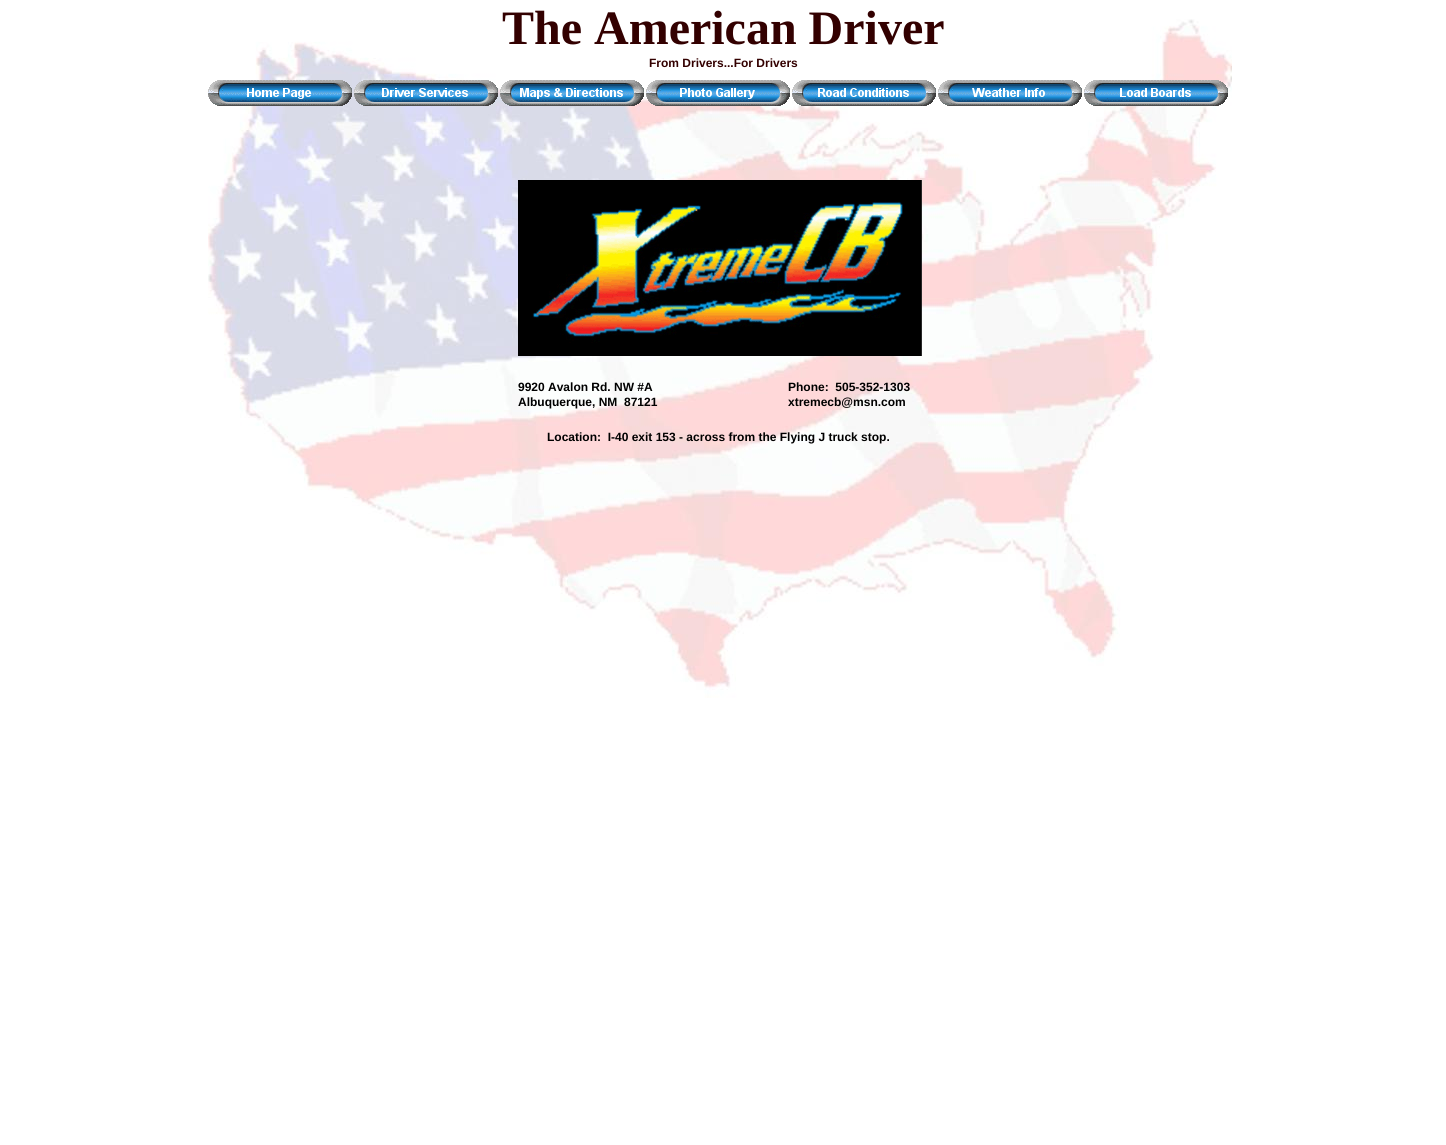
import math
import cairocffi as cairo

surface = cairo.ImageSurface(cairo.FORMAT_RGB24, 1446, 1145)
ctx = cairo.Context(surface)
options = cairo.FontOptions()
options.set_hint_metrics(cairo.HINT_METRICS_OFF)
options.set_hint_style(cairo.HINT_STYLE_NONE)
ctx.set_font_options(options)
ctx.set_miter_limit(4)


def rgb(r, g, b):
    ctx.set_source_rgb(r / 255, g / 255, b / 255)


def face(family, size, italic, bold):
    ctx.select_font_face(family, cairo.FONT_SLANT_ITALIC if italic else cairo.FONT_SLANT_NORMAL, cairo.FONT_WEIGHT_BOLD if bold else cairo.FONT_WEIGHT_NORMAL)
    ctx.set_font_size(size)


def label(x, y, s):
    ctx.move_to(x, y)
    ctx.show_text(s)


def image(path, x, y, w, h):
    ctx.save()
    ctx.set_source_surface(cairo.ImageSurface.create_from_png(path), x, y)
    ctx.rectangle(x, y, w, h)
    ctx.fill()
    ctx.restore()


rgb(255, 255, 255)
ctx.paint()
image('image0.png', 208, 19, 1024, 679)
face('Liberation Serif', 48, 0, 1)
rgb(51, 0, 0)
label(502, 44, 'The American Driver')
face('Liberation Sans', 12, 0, 1)
label(649, 67, 'From Drivers...For Drivers')
image('image1.png', 208, 80, 144, 26)
image('image2.png', 354, 80, 144, 26)
image('image3.png', 500, 80, 144, 26)
image('image4.png', 646, 80, 144, 26)
image('image5.png', 792, 80, 144, 26)
image('image6.png', 938, 80, 144, 26)
image('image7.png', 1084, 80, 144, 26)
image('image8.png', 518, 180, 404, 176)
rgb(0, 0, 0)
label(518, 391, '9920 Avalon Rd. NW #A')
label(518, 406, 'Albuquerque, NM  87121')
label(788, 391, 'Phone:  505-352-1303')
label(788, 406, 'xtremecb@msn.com')
label(547, 441, 'Location:  I-40 exit 153 - across from the Flying J truck stop.')
surface.write_to_png('render.png')
